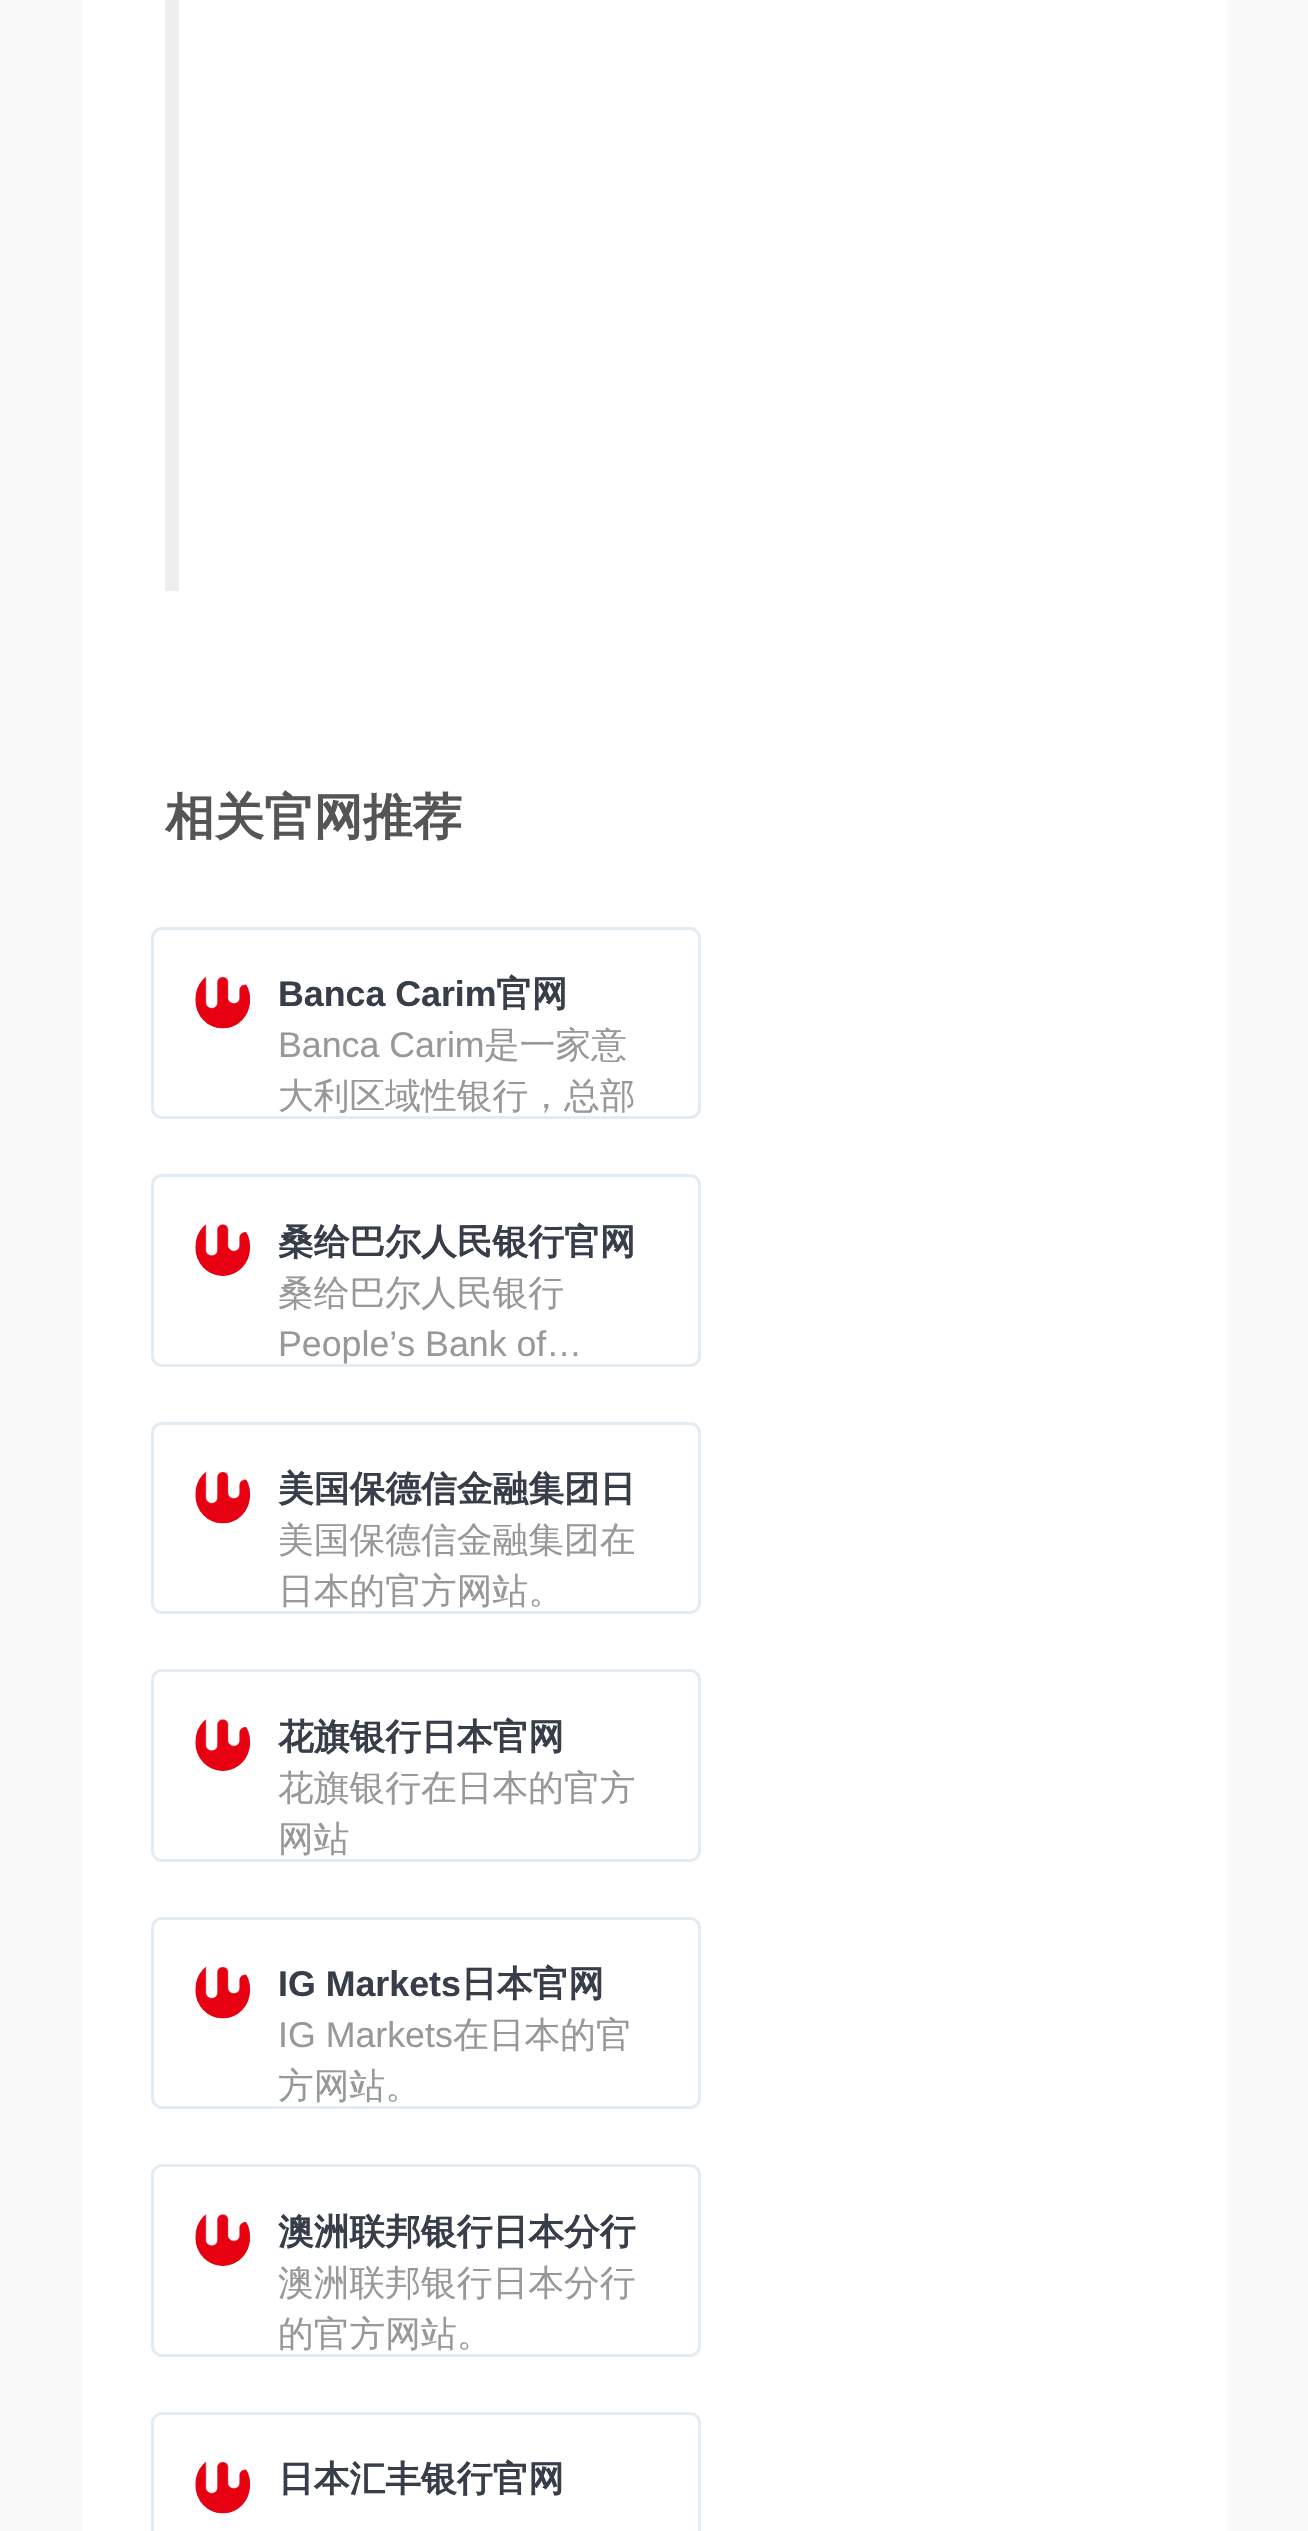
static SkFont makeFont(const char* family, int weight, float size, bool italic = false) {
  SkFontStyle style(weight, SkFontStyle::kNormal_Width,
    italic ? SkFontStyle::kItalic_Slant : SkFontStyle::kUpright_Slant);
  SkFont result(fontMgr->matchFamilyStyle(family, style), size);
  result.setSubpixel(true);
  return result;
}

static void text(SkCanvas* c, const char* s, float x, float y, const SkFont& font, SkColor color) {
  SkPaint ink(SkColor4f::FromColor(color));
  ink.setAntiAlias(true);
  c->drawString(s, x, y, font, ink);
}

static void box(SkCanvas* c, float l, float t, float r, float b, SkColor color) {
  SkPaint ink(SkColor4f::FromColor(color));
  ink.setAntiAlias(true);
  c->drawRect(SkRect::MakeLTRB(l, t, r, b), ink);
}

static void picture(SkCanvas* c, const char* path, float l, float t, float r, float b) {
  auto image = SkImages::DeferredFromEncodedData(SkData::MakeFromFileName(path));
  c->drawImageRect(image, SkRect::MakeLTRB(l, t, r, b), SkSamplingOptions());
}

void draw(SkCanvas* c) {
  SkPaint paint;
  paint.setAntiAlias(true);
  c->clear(0xfff9f9f9);
  box(c, 83, 0, 1227, 2531, 0xffffffff);
  box(c, 165, 0, 179, 591, 0xffeeeeee);
  SkFont face1 = makeFont("WenQuanYi Zen Hei", 700, 49.5f);
  text(c, "相关官网推荐", 165, 834, face1, 0xff555555);
  paint.setStyle(SkPaint::kStroke_Style);
  paint.setStrokeWidth(3);
  paint.setColor(0xffe4ecf3);
  c->drawRoundRect(SkRect::MakeLTRB(152.5f, 928.5f, 699.5f, 1117.5f), 9.5f, 9.5f, paint);
  picture(c, "img_01.png", 195, 976, 251, 1029);
  SkFont face2 = makeFont("Arimo", 700, 35.75f);
  text(c, "Banca Carim", 278, 1006, face2, 0xff373e4a);
  SkFont face3 = makeFont("WenQuanYi Zen Hei", 700, 35.75f);
  text(c, "官网", 496, 1006, face3, 0xff373e4a);
  SkFont face4 = makeFont("Arimo", 400, 35.75f);
  text(c, "Banca Carim", 278, 1057, face4, 0xff979898);
  SkFont face5 = makeFont("WenQuanYi Zen Hei", 500, 35.75f);
  text(c, "是一家意", 484, 1057, face5, 0xff979898);
  text(c, "大利区域性银行，总部", 278, 1108, face5, 0xff979898);
  c->drawRoundRect(SkRect::MakeLTRB(152.5f, 1175.5f, 699.5f, 1365.5f), 9.5f, 9.5f, paint);
  picture(c, "img_02.png", 195, 1224, 251, 1276);
  text(c, "桑给巴尔人民银行官网", 278, 1254, face3, 0xff373e4a);
  text(c, "桑给巴尔人民银行", 278, 1305, face5, 0xff979898);
  text(c, "People’s Bank of…", 278, 1356, face4, 0xff979898);
  c->drawRoundRect(SkRect::MakeLTRB(152.5f, 1423.5f, 699.5f, 1612.5f), 9.5f, 9.5f, paint);
  picture(c, "img_01.png", 195, 1471, 251, 1524);
  text(c, "美国保德信金融集团日", 278, 1501, face3, 0xff373e4a);
  text(c, "美国保德信金融集团在", 278, 1552, face5, 0xff979898);
  text(c, "日本的官方网站。", 278, 1603, face5, 0xff979898);
  c->drawRoundRect(SkRect::MakeLTRB(152.5f, 1670.5f, 699.5f, 1860.5f), 9.5f, 9.5f, paint);
  picture(c, "img_02.png", 195, 1719, 251, 1771);
  text(c, "花旗银行日本官网", 278, 1749, face3, 0xff373e4a);
  text(c, "花旗银行在日本的官方", 278, 1800, face5, 0xff979898);
  text(c, "网站", 278, 1851, face5, 0xff979898);
  c->drawRoundRect(SkRect::MakeLTRB(152.5f, 1918.5f, 699.5f, 2107.5f), 9.5f, 9.5f, paint);
  picture(c, "img_01.png", 195, 1966, 251, 2019);
  text(c, "IG Markets", 278, 1996, face2, 0xff373e4a);
  text(c, "日本官网", 461, 1996, face3, 0xff373e4a);
  text(c, "IG Markets", 278, 2047, face4, 0xff979898);
  text(c, "在日本的官", 453, 2047, face5, 0xff979898);
  text(c, "方网站。", 278, 2098, face5, 0xff979898);
  c->drawRoundRect(SkRect::MakeLTRB(152.5f, 2165.5f, 699.5f, 2355.5f), 9.5f, 9.5f, paint);
  picture(c, "img_02.png", 195, 2214, 251, 2266);
  text(c, "澳洲联邦银行日本分行", 278, 2244, face3, 0xff373e4a);
  text(c, "澳洲联邦银行日本分行", 278, 2295, face5, 0xff979898);
  text(c, "的官方网站。", 278, 2346, face5, 0xff979898);
  c->drawRoundRect(SkRect::MakeLTRB(152.5f, 2413.5f, 699.5f, 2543.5f), 9.5f, 9.5f, paint);
  picture(c, "img_01.png", 195, 2461, 251, 2514);
  text(c, "日本汇丰银行官网", 278, 2491, face3, 0xff373e4a);
}
